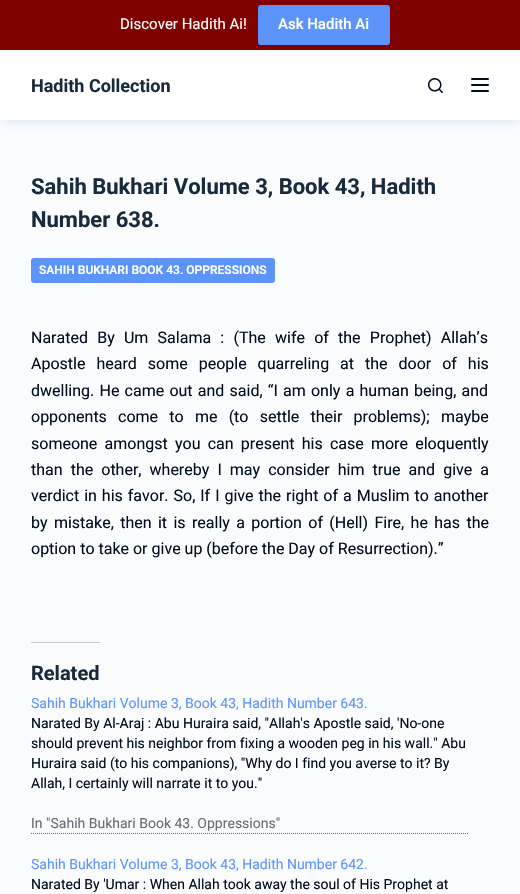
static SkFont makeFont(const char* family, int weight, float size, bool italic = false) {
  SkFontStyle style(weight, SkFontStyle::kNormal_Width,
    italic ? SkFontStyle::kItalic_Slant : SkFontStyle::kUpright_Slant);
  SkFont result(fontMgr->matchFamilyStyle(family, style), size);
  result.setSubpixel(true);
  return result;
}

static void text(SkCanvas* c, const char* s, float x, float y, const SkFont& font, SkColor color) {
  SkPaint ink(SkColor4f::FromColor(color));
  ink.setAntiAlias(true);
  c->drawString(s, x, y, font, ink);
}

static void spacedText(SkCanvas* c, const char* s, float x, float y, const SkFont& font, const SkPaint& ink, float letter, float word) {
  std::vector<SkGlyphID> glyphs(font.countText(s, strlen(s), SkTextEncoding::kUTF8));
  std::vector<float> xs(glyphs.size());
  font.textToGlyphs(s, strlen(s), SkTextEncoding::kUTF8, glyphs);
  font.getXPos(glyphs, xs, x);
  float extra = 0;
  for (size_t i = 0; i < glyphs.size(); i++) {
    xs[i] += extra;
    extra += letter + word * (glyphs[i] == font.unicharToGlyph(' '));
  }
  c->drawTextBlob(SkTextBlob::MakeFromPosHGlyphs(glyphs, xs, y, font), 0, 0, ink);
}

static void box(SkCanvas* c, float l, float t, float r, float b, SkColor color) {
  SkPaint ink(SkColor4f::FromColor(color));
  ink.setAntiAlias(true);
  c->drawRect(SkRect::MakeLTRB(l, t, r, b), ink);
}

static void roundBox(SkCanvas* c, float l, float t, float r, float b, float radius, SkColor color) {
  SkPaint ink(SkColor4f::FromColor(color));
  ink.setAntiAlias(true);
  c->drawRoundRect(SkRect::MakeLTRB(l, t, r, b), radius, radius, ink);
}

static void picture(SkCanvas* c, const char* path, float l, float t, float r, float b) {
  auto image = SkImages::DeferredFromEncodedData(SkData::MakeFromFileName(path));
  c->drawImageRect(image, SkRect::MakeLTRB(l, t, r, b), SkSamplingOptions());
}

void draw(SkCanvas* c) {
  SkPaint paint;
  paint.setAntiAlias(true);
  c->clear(0xfffafbfc);
  paint.setColor(0x2b4773ff);
  paint.setMaskFilter(SkMaskFilter::MakeBlur(kNormal_SkBlurStyle, 5));
  c->drawRect(SkRect::MakeLTRB(1, 51, 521, 121), paint);
  paint.setMaskFilter(nullptr);
  box(c, 0, 0, 520, 50, 0xff7f0200);
  SkFont face1 = makeFont("Roboto", 400, 15);
  text(c, "Discover Hadith Ai!", 120, 29, face1, 0xffffffff);
  roundBox(c, 258, 5, 390, 45, 3, 0xff5c94fc);
  SkFont face2 = makeFont("Roboto", 500, 15);
  text(c, "Ask Hadith Ai", 278, 29, face2, 0xffffffff);
  box(c, 0, 50, 520, 120, 0xffffffff);
  SkFont face3 = makeFont("Roboto", 700, 18);
  text(c, "Hadith Collection", 31, 92, face3, 0xff192a3d);
  picture(c, "img_01.png", 428, 78, 443, 93);
  roundBox(c, 471, 78, 489, 80, 1, 0xff000d1f);
  roundBox(c, 471, 84, 489, 86, 1, 0xff000d1f);
  roundBox(c, 471, 90, 489, 92, 1, 0xff000d1f);
  SkFont face4 = makeFont("Roboto", 700, 22);
  text(c, "Sahih Bukhari Volume 3, Book 43, Hadith", 31, 194, face4, 0xff192a3d);
  text(c, "Number 638.", 31, 227, face4, 0xff192a3d);
  roundBox(c, 31, 258, 275, 283, 3, 0xff5c94fc);
  SkFont face5 = makeFont("Roboto", 600, 12);
  text(c, "SAHIH BUKHARI BOOK 43. OPPRESSIONS", 39, 274, face5, 0xffffffff);
  SkFont face6 = makeFont("Roboto", 400, 16);
  paint.setColor(0xff000d1f);
  spacedText(c, "Narated By Um Salama : (The wife of the Prophet) Allah’s", 31, 343, face6, paint, 0, 5.25f);
  spacedText(c, "Apostle heard some people quarreling at the door of his", 31, 369, face6, paint, 0, 7);
  spacedText(c, "dwelling. He came out and said, “I am only a human being, and", 31, 396, face6, paint, 0, 1.25f);
  spacedText(c, "opponents come to me (to settle their problems); maybe", 31, 422, face6, paint, 0, 7.25f);
  spacedText(c, "someone amongst you can present his case more eloquently", 31, 449, face6, paint, 0, 3.25f);
  spacedText(c, "than the other, whereby I may consider him true and give a", 31, 475, face6, paint, 0, 4.1f);
  spacedText(c, "verdict in his favor. So, If I give the right of a Muslim to another", 31, 501, face6, paint, 0, 1);
  spacedText(c, "by mistake, then it is really a portion of (Hell) Fire, he has the", 31, 528, face6, paint, 0, 2.4f);
  text(c, "option to take or give up (before the Day of Resurrection).”", 31, 554, face6, 0xff000d1f);
  box(c, 31, 642, 100, 643, 0xffc8c9ca);
  SkFont face7 = makeFont("Roboto", 700, 20);
  text(c, "Related", 31, 680, face7, 0xff192a3d);
  SkFont face8 = makeFont("Roboto", 400, 14);
  text(c, "Sahih Bukhari Volume 3, Book 43, Hadith Number 643.", 31, 708, face8, 0xff5c94fc);
  text(c, "Narated By Al-Araj : Abu Huraira said, \"Allah's Apostle said, 'No-one", 31, 728, face8, 0xff000d1f);
  text(c, "should prevent his neighbor from fixing a wooden peg in his wall.\" Abu", 31, 748, face8, 0xff000d1f);
  text(c, "Huraira said (to his companions), \"Why do I find you averse to it? By", 31, 768, face8, 0xff000d1f);
  text(c, "Allah, I certainly will narrate it to you.\"", 31, 788, face8, 0xff000d1f);
  paint.setStyle(SkPaint::kStroke_Style);
  paint.setStrokeWidth(1);
  paint.setColor(0xff646c77);
  paint.setPathEffect(SkDashPathEffect::Make({{1, 1}}, 0));
  c->drawPath(SkPathBuilder().moveTo(31, 833.5f).lineTo(469, 833.5f).detach(), paint);
  paint.setPathEffect(nullptr);
  text(c, "In \"Sahih Bukhari Book 43. Oppressions\"", 31, 828, face8, 0xff646c77);
  text(c, "Sahih Bukhari Volume 3, Book 43, Hadith Number 642.", 31, 869, face8, 0xff5c94fc);
  text(c, "Narated By 'Umar : When Allah took away the soul of His Prophet at", 31, 889, face8, 0xff000d1f);
}
